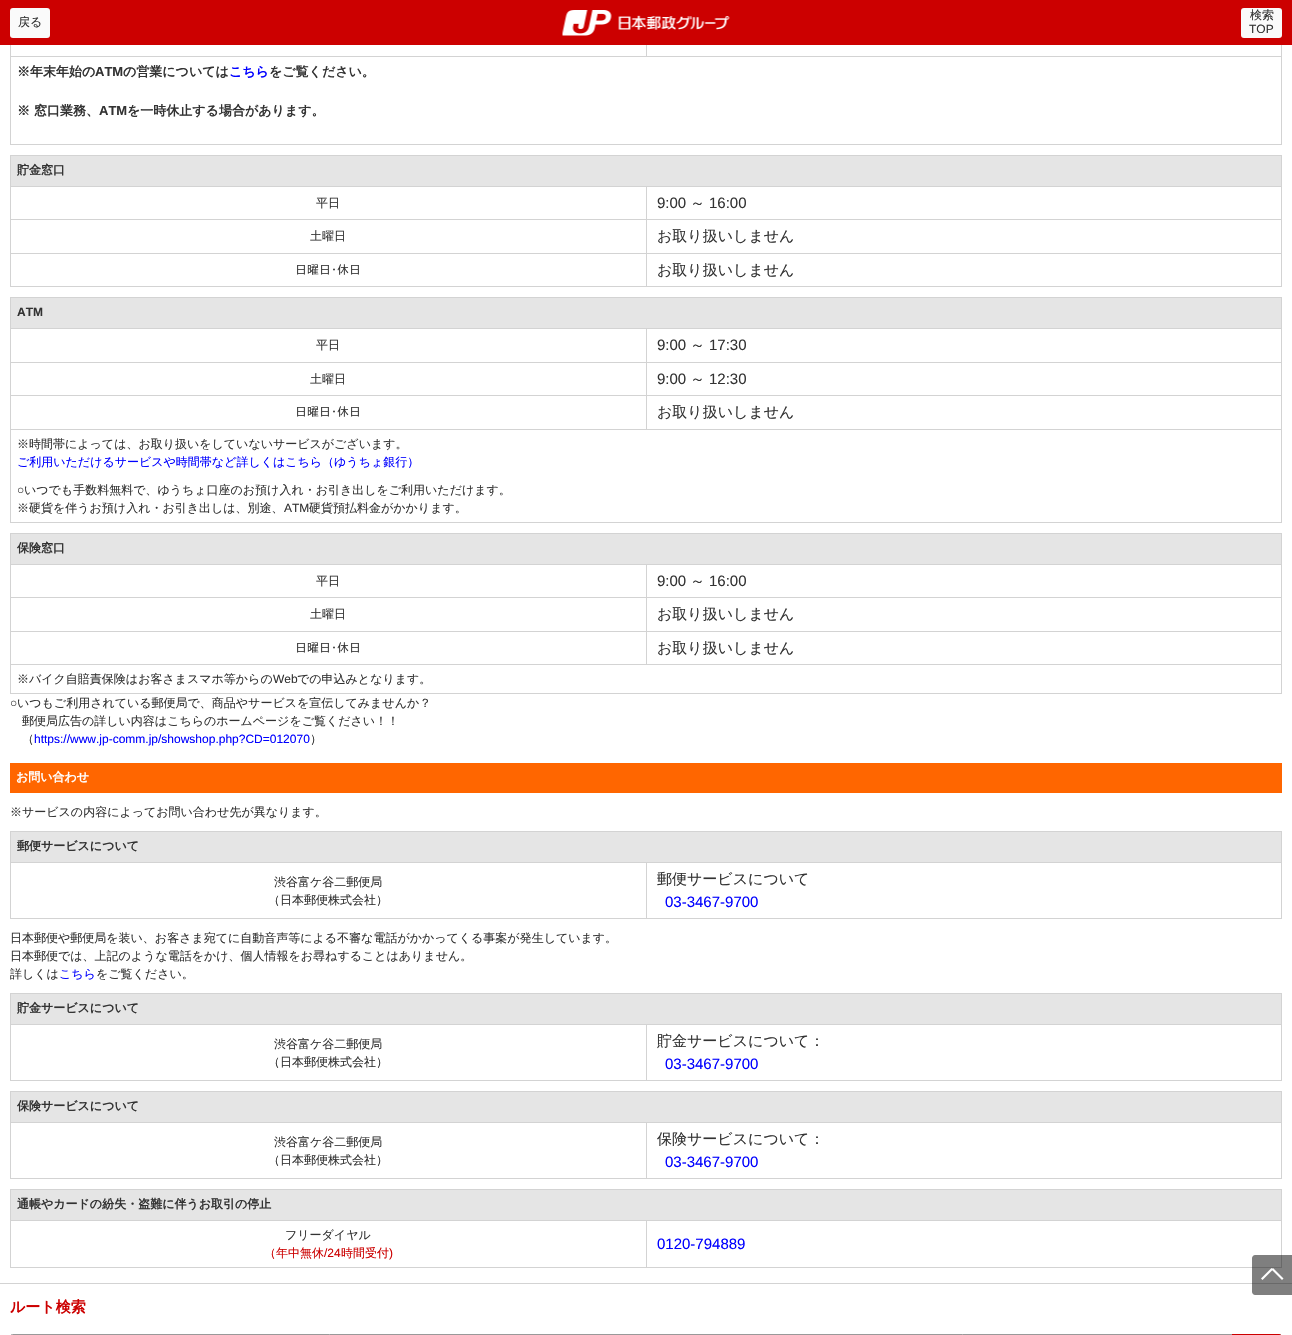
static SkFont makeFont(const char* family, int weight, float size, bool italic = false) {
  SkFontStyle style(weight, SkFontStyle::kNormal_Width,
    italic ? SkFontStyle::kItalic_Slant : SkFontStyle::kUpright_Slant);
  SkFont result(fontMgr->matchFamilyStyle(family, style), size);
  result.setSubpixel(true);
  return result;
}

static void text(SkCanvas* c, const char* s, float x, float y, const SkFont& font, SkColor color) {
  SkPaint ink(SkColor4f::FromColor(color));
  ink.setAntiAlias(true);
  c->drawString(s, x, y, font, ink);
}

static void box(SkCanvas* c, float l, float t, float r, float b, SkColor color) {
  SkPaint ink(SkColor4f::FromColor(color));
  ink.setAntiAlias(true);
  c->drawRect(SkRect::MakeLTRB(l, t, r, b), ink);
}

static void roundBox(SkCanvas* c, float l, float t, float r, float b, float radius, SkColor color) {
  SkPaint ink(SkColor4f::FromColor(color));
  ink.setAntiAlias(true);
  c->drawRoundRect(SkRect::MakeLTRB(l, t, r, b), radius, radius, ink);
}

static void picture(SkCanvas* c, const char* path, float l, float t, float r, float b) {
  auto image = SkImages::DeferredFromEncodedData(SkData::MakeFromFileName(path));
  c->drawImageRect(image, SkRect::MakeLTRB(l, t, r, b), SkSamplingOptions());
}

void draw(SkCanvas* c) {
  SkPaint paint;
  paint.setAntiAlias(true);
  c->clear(0xffffffff);
  box(c, 0, 0, 1292, 45, 0xffcc0000);
  roundBox(c, 10, 8, 50, 38, 3, 0xfffafafa);
  SkFont face1 = makeFont("WenQuanYi Zen Hei", 500, 12);
  text(c, "戻る", 18, 26, face1, 0xff333333);
  picture(c, "img_01.png", 562, 10, 730, 36);
  roundBox(c, 1241, 8, 1282, 38, 3, 0xfffafafa);
  text(c, "検索", 1250, 19, face1, 0xff333333);
  SkFont face2 = makeFont("Liberation Sans", 400, 12);
  text(c, "TOP", 1249, 33, face2, 0xff333333);
  box(c, 1281, 45, 1282, 145, 0xffd3d3d3);
  box(c, 646, 56, 1282, 57, 0xffd3d3d3);
  box(c, 646, 45, 647, 57, 0xffd3d3d3);
  box(c, 10, 56, 647, 57, 0xffd3d3d3);
  box(c, 10, 45, 11, 57, 0xffd3d3d3);
  box(c, 10, 144, 1282, 145, 0xffd3d3d3);
  box(c, 10, 57, 11, 145, 0xffd3d3d3);
  SkFont face3 = makeFont("WenQuanYi Zen Hei", 700, 13);
  text(c, "※年末年始の", 17, 76, face3, 0xff333333);
  SkFont face4 = makeFont("Liberation Sans", 700, 13);
  text(c, "ATM", 95, 76, face4, 0xff333333);
  text(c, "の営業については", 123, 76, face3, 0xff333333);
  text(c, "こちら", 229, 76, face3, 0xff0000ff);
  text(c, "をご覧ください。", 269, 76, face3, 0xff333333);
  text(c, "※ 窓口業務、", 17, 115, face3, 0xff333333);
  text(c, "ATM", 99, 115, face4, 0xff333333);
  text(c, "を一時休止する場合があります。", 127, 115, face3, 0xff333333);
  paint.setColor(0xffe5e5e5);
  c->drawRect(SkRect::MakeLTRB(10.5f, 155.5f, 1281.5f, 186.5f), paint);
  paint.setStyle(SkPaint::kStroke_Style);
  paint.setStrokeWidth(1);
  paint.setColor(0xffd3d3d3);
  c->drawRect(SkRect::MakeLTRB(10.5f, 155.5f, 1281.5f, 186.5f), paint);
  SkFont face5 = makeFont("WenQuanYi Zen Hei", 700, 12);
  text(c, "貯金窓口", 17, 174, face5, 0xff333333);
  box(c, 1281, 186, 1282, 287, 0xffd3d3d3);
  box(c, 646, 286, 1282, 287, 0xffd3d3d3);
  box(c, 646, 253, 647, 287, 0xffd3d3d3);
  box(c, 646, 253, 1282, 254, 0xffd3d3d3);
  box(c, 646, 219, 647, 254, 0xffd3d3d3);
  box(c, 646, 219, 1282, 220, 0xffd3d3d3);
  box(c, 646, 186, 647, 220, 0xffd3d3d3);
  box(c, 10, 286, 647, 287, 0xffd3d3d3);
  box(c, 10, 253, 11, 287, 0xffd3d3d3);
  box(c, 10, 253, 647, 254, 0xffd3d3d3);
  box(c, 10, 219, 11, 254, 0xffd3d3d3);
  box(c, 10, 219, 647, 220, 0xffd3d3d3);
  box(c, 10, 186, 11, 220, 0xffd3d3d3);
  text(c, "平日", 316, 207, face1, 0xff333333);
  SkFont face6 = makeFont("Liberation Sans", 400, 15);
  text(c, "9:00", 657, 208, face6, 0xff333333);
  SkFont face7 = makeFont("WenQuanYi Zen Hei", 500, 15);
  text(c, "～", 690, 208, face7, 0xff333333);
  text(c, "16:00", 709, 208, face6, 0xff333333);
  text(c, "土曜日", 310, 240, face1, 0xff333333);
  text(c, "お取り扱いしません", 657, 241, face7, 0xff333333);
  SkFont face8 = makeFont("IPAPGothic", 400, 12);
  text(c, "日曜日･休日", 295, 274, face8, 0xff333333);
  text(c, "お取り扱いしません", 657, 275, face7, 0xff333333);
  paint.setStyle(SkPaint::kFill_Style);
  paint.setColor(0xffe5e5e5);
  c->drawRect(SkRect::MakeLTRB(10.5f, 297.5f, 1281.5f, 328.5f), paint);
  paint.setStyle(SkPaint::kStroke_Style);
  paint.setColor(0xffd3d3d3);
  c->drawRect(SkRect::MakeLTRB(10.5f, 297.5f, 1281.5f, 328.5f), paint);
  SkFont face9 = makeFont("Liberation Sans", 700, 12);
  text(c, "ATM", 17, 316, face9, 0xff333333);
  box(c, 1281, 329, 1282, 523, 0xffd3d3d3);
  box(c, 646, 429, 1282, 430, 0xffd3d3d3);
  box(c, 646, 395, 647, 430, 0xffd3d3d3);
  box(c, 646, 395, 1282, 396, 0xffd3d3d3);
  box(c, 646, 362, 647, 396, 0xffd3d3d3);
  box(c, 646, 362, 1282, 363, 0xffd3d3d3);
  box(c, 646, 329, 647, 363, 0xffd3d3d3);
  box(c, 10, 429, 647, 430, 0xffd3d3d3);
  box(c, 10, 395, 11, 430, 0xffd3d3d3);
  box(c, 10, 395, 647, 396, 0xffd3d3d3);
  box(c, 10, 362, 11, 396, 0xffd3d3d3);
  box(c, 10, 362, 647, 363, 0xffd3d3d3);
  box(c, 10, 329, 11, 363, 0xffd3d3d3);
  text(c, "平日", 316, 349, face1, 0xff333333);
  text(c, "9:00", 657, 350, face6, 0xff333333);
  text(c, "～", 690, 350, face7, 0xff333333);
  text(c, "17:30", 709, 350, face6, 0xff333333);
  text(c, "土曜日", 310, 383, face1, 0xff333333);
  text(c, "9:00", 657, 384, face6, 0xff333333);
  text(c, "～", 690, 384, face7, 0xff333333);
  text(c, "12:30", 709, 384, face6, 0xff333333);
  text(c, "日曜日･休日", 295, 416, face8, 0xff333333);
  text(c, "お取り扱いしません", 657, 417, face7, 0xff333333);
  box(c, 10, 522, 1282, 523, 0xffd3d3d3);
  box(c, 10, 430, 11, 523, 0xffd3d3d3);
  text(c, "※時間帯によっては、お取り扱いをしていないサービスがございます。", 17, 448, face1, 0xff333333);
  text(c, "ご利用いただけるサービスや時間帯など詳しくはこちら（ゆうちょ銀行）", 17, 466, face1, 0xff0000ff);
  text(c, "○", 17, 494, face2, 0xff333333);
  text(c, "いつでも手数料無料で、ゆうちょ口座のお預け入れ・お引き出しをご利用いただけます。", 24, 494, face1, 0xff333333);
  text(c, "※硬貨を伴うお預け入れ・お引き出しは、別途、", 17, 512, face1, 0xff333333);
  text(c, "ATM", 284, 512, face2, 0xff333333);
  text(c, "硬貨預払料金がかかります。", 309, 512, face1, 0xff333333);
  paint.setStyle(SkPaint::kFill_Style);
  paint.setColor(0xffe5e5e5);
  c->drawRect(SkRect::MakeLTRB(10.5f, 533.5f, 1281.5f, 564.5f), paint);
  paint.setStyle(SkPaint::kStroke_Style);
  paint.setColor(0xffd3d3d3);
  c->drawRect(SkRect::MakeLTRB(10.5f, 533.5f, 1281.5f, 564.5f), paint);
  text(c, "保険窓口", 17, 552, face5, 0xff333333);
  box(c, 1281, 564, 1282, 694, 0xffd3d3d3);
  box(c, 646, 664, 1282, 665, 0xffd3d3d3);
  box(c, 646, 631, 647, 665, 0xffd3d3d3);
  box(c, 646, 631, 1282, 632, 0xffd3d3d3);
  box(c, 646, 597, 647, 632, 0xffd3d3d3);
  box(c, 646, 597, 1282, 598, 0xffd3d3d3);
  box(c, 646, 564, 647, 598, 0xffd3d3d3);
  box(c, 10, 664, 647, 665, 0xffd3d3d3);
  box(c, 10, 631, 11, 665, 0xffd3d3d3);
  box(c, 10, 631, 647, 632, 0xffd3d3d3);
  box(c, 10, 597, 11, 632, 0xffd3d3d3);
  box(c, 10, 597, 647, 598, 0xffd3d3d3);
  box(c, 10, 564, 11, 598, 0xffd3d3d3);
  text(c, "平日", 316, 585, face1, 0xff333333);
  text(c, "9:00", 657, 586, face6, 0xff333333);
  text(c, "～", 690, 586, face7, 0xff333333);
  text(c, "16:00", 709, 586, face6, 0xff333333);
  text(c, "土曜日", 310, 618, face1, 0xff333333);
  text(c, "お取り扱いしません", 657, 619, face7, 0xff333333);
  text(c, "日曜日･休日", 295, 652, face8, 0xff333333);
  text(c, "お取り扱いしません", 657, 653, face7, 0xff333333);
  box(c, 10, 693, 1282, 694, 0xffd3d3d3);
  box(c, 10, 665, 11, 694, 0xffd3d3d3);
  text(c, "※バイク自賠責保険はお客さまスマホ等からの", 17, 683, face1, 0xff333333);
  text(c, "Web", 273, 683, face2, 0xff333333);
  text(c, "での申込みとなります。", 297, 683, face1, 0xff333333);
  text(c, "○", 10, 707, face2, 0xff333333);
  text(c, "いつもご利用されている郵便局で、商品やサービスを宣伝してみませんか？", 17, 707, face1, 0xff333333);
  text(c, "郵便局広告の詳しい内容はこちらのホームページをご覧ください！！", 22, 725, face1, 0xff333333);
  text(c, "（", 22, 743, face1, 0xff333333);
  text(c, "https://www.jp-comm.jp/showshop.php?CD=012070", 34, 743, face2, 0xff0000ff);
  text(c, "）", 310, 743, face1, 0xff333333);
  box(c, 10, 763, 1282, 793, 0xffff6600);
  text(c, "お問い合わせ", 16, 781, face5, 0xffffffff);
  text(c, "※サービスの内容によってお問い合わせ先が異なります。", 10, 816, face1, 0xff333333);
  paint.setStyle(SkPaint::kFill_Style);
  paint.setColor(0xffe5e5e5);
  c->drawRect(SkRect::MakeLTRB(10.5f, 831.5f, 1281.5f, 862.5f), paint);
  paint.setStyle(SkPaint::kStroke_Style);
  paint.setColor(0xffd3d3d3);
  c->drawRect(SkRect::MakeLTRB(10.5f, 831.5f, 1281.5f, 862.5f), paint);
  text(c, "郵便サービスについて", 17, 850, face5, 0xff333333);
  box(c, 1281, 863, 1282, 919, 0xffd3d3d3);
  box(c, 646, 918, 1282, 919, 0xffd3d3d3);
  box(c, 646, 863, 647, 919, 0xffd3d3d3);
  box(c, 10, 918, 647, 919, 0xffd3d3d3);
  box(c, 10, 863, 11, 919, 0xffd3d3d3);
  text(c, "渋谷富ケ谷二郵便局", 274, 886, face1, 0xff333333);
  text(c, "（日本郵便株式会社）", 268, 904, face1, 0xff333333);
  text(c, "郵便サービスについて", 657, 884, face7, 0xff333333);
  text(c, "03-3467-9700", 665, 907, face6, 0xff0000ff);
  text(c, "日本郵便や郵便局を装い、お客さま宛てに自動音声等による不審な電話がかかってくる事案が発生しています。", 10, 942, face1, 0xff333333);
  text(c, "日本郵便では、上記のような電話をかけ、個人情報をお尋ねすることはありません。", 10, 960, face1, 0xff333333);
  text(c, "詳しくは", 10, 978, face1, 0xff333333);
  text(c, "こちら", 59, 978, face1, 0xff0000ff);
  text(c, "をご覧ください。", 96, 978, face1, 0xff333333);
  paint.setStyle(SkPaint::kFill_Style);
  paint.setColor(0xffe5e5e5);
  c->drawRect(SkRect::MakeLTRB(10.5f, 993.5f, 1281.5f, 1024.5f), paint);
  paint.setStyle(SkPaint::kStroke_Style);
  paint.setColor(0xffd3d3d3);
  c->drawRect(SkRect::MakeLTRB(10.5f, 993.5f, 1281.5f, 1024.5f), paint);
  text(c, "貯金サービスについて", 17, 1012, face5, 0xff333333);
  box(c, 1281, 1025, 1282, 1081, 0xffd3d3d3);
  box(c, 646, 1080, 1282, 1081, 0xffd3d3d3);
  box(c, 646, 1025, 647, 1081, 0xffd3d3d3);
  box(c, 10, 1080, 647, 1081, 0xffd3d3d3);
  box(c, 10, 1025, 11, 1081, 0xffd3d3d3);
  text(c, "渋谷富ケ谷二郵便局", 274, 1048, face1, 0xff333333);
  text(c, "（日本郵便株式会社）", 268, 1066, face1, 0xff333333);
  text(c, "貯金サービスについて：", 657, 1046, face7, 0xff333333);
  text(c, "03-3467-9700", 665, 1069, face6, 0xff0000ff);
  paint.setStyle(SkPaint::kFill_Style);
  paint.setColor(0xffe5e5e5);
  c->drawRect(SkRect::MakeLTRB(10.5f, 1091.5f, 1281.5f, 1122.5f), paint);
  paint.setStyle(SkPaint::kStroke_Style);
  paint.setColor(0xffd3d3d3);
  c->drawRect(SkRect::MakeLTRB(10.5f, 1091.5f, 1281.5f, 1122.5f), paint);
  text(c, "保険サービスについて", 17, 1110, face5, 0xff333333);
  box(c, 1281, 1123, 1282, 1179, 0xffd3d3d3);
  box(c, 646, 1178, 1282, 1179, 0xffd3d3d3);
  box(c, 646, 1123, 647, 1179, 0xffd3d3d3);
  box(c, 10, 1178, 647, 1179, 0xffd3d3d3);
  box(c, 10, 1123, 11, 1179, 0xffd3d3d3);
  text(c, "渋谷富ケ谷二郵便局", 274, 1146, face1, 0xff333333);
  text(c, "（日本郵便株式会社）", 268, 1164, face1, 0xff333333);
  text(c, "保険サービスについて：", 657, 1144, face7, 0xff333333);
  text(c, "03-3467-9700", 665, 1167, face6, 0xff0000ff);
  paint.setStyle(SkPaint::kFill_Style);
  paint.setColor(0xffe5e5e5);
  c->drawRect(SkRect::MakeLTRB(10.5f, 1189.5f, 1281.5f, 1220.5f), paint);
  paint.setStyle(SkPaint::kStroke_Style);
  paint.setColor(0xffd3d3d3);
  c->drawRect(SkRect::MakeLTRB(10.5f, 1189.5f, 1281.5f, 1220.5f), paint);
  text(c, "通帳やカードの紛失・盗難に伴うお取引の停止", 17, 1208, face5, 0xff333333);
  box(c, 1281, 1221, 1282, 1268, 0xffd3d3d3);
  box(c, 646, 1267, 1282, 1268, 0xffd3d3d3);
  box(c, 646, 1221, 647, 1268, 0xffd3d3d3);
  box(c, 10, 1267, 647, 1268, 0xffd3d3d3);
  box(c, 10, 1221, 11, 1268, 0xffd3d3d3);
  text(c, "フリーダイヤル", 285, 1239, face1, 0xff333333);
  text(c, "（年中無休", 264, 1257, face1, 0xffcc0000);
  text(c, "/24", 324, 1257, face2, 0xffcc0000);
  text(c, "時間受付", 341, 1257, face1, 0xffcc0000);
  text(c, ")", 389, 1257, face2, 0xffcc0000);
  text(c, "0120-794889", 657, 1249, face6, 0xff0000ff);
  box(c, 0, 1283, 1292, 1284, 0xffd3d3d3);
  SkFont face10 = makeFont("WenQuanYi Zen Hei", 700, 15);
  text(c, "ルート検索", 10, 1312, face10, 0xffcc0000);
  paint.setColor(0xff999999);
  c->drawRoundRect(SkRect::MakeLTRB(10.5f, 1334.5f, 1281.5f, 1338.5f), 2.5f, 2.5f, paint);
  paint.setStyle(SkPaint::kFill_Style);
  paint.setColor(0xffcc0000);
  c->drawPath(SkPathBuilder().moveTo(1232, 1334).lineTo(1279, 1334).cubicTo(1280.5f, 1334, 1282, 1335.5f, 1282, 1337).lineTo(1282, 1335).cubicTo(1282, 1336.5f, 1280.5f, 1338, 1279, 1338).lineTo(1232, 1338).close().detach(), paint);
  paint.setColor(0x80000000);
  c->drawPath(SkPathBuilder().moveTo(1255, 1255).lineTo(1292, 1255).lineTo(1292, 1295).lineTo(1255, 1295).cubicTo(1253.5f, 1295, 1252, 1293.5f, 1252, 1292).lineTo(1252, 1258).cubicTo(1252, 1256.5f, 1253.5f, 1255, 1255, 1255).close().detach(), paint);
  paint.setColor(0xffffffff);
  c->drawPath(SkPathBuilder().moveTo(1273, 1268).lineTo(1283.5f, 1278.5f).lineTo(1282, 1280).lineTo(1271.5f, 1269.5f).close().detach(), paint);
  c->drawPath(SkPathBuilder().moveTo(1261, 1278.5f).lineTo(1271.5f, 1268).lineTo(1273, 1269.5f).lineTo(1262.5f, 1280).close().detach(), paint);
}
